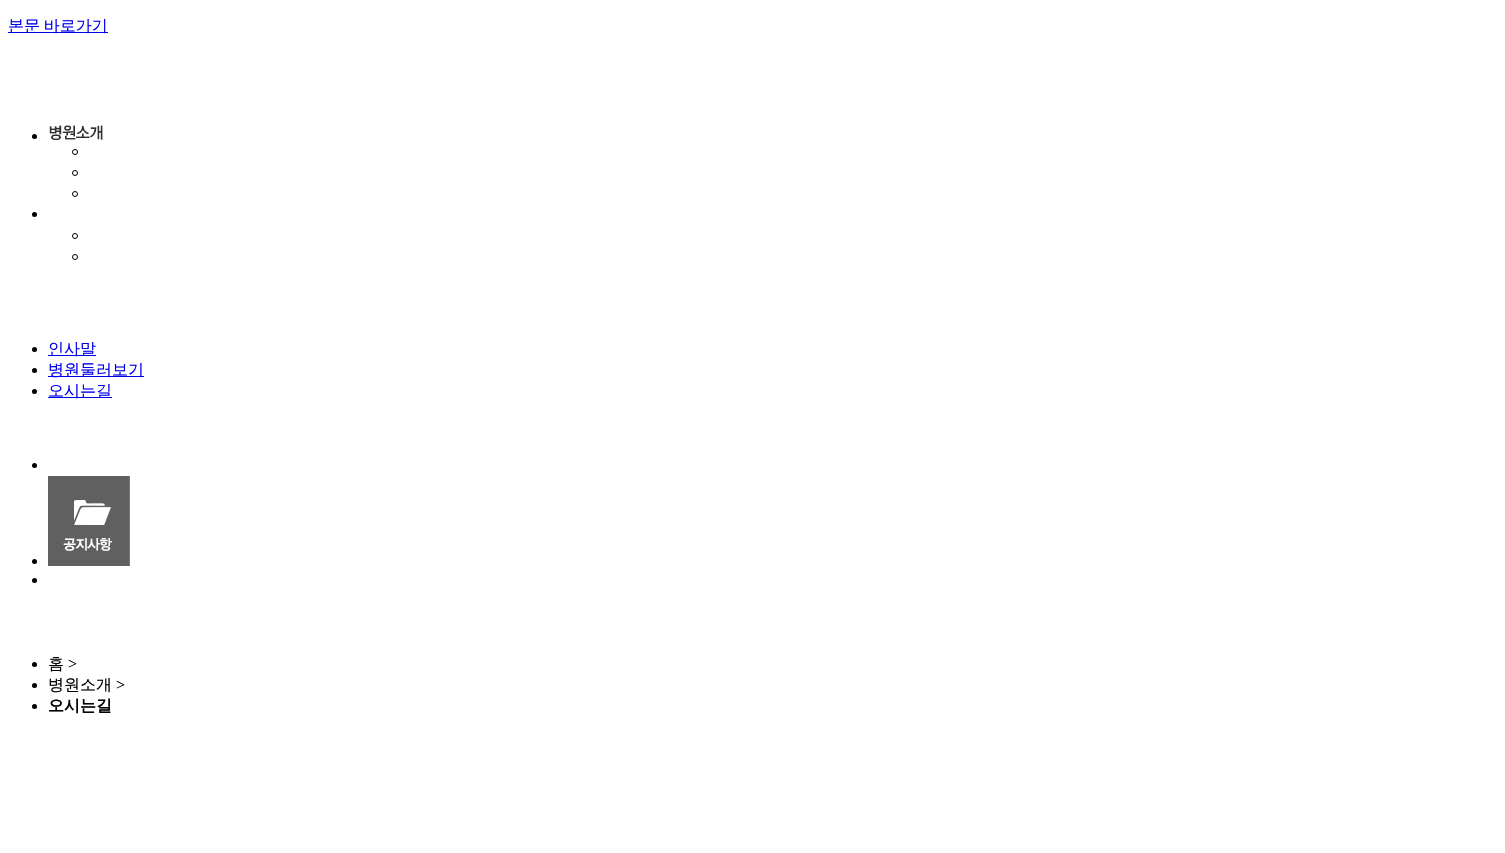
static SkFont makeFont(const char* family, int weight, float size, bool italic = false) {
  SkFontStyle style(weight, SkFontStyle::kNormal_Width,
    italic ? SkFontStyle::kItalic_Slant : SkFontStyle::kUpright_Slant);
  SkFont result(fontMgr->matchFamilyStyle(family, style), size);
  result.setSubpixel(true);
  return result;
}

static void text(SkCanvas* c, const char* s, float x, float y, const SkFont& font, SkColor color) {
  SkPaint ink(SkColor4f::FromColor(color));
  ink.setAntiAlias(true);
  c->drawString(s, x, y, font, ink);
}

static void spacedText(SkCanvas* c, const char* s, float x, float y, const SkFont& font, const SkPaint& ink, float letter, float word) {
  std::vector<SkGlyphID> glyphs(font.countText(s, strlen(s), SkTextEncoding::kUTF8));
  std::vector<float> xs(glyphs.size());
  font.textToGlyphs(s, strlen(s), SkTextEncoding::kUTF8, glyphs);
  font.getXPos(glyphs, xs, x);
  float extra = 0;
  for (size_t i = 0; i < glyphs.size(); i++) {
    xs[i] += extra;
    extra += letter + word * (glyphs[i] == font.unicharToGlyph(' '));
  }
  c->drawTextBlob(SkTextBlob::MakeFromPosHGlyphs(glyphs, xs, y, font), 0, 0, ink);
}

static void box(SkCanvas* c, float l, float t, float r, float b, SkColor color) {
  SkPaint ink(SkColor4f::FromColor(color));
  ink.setAntiAlias(true);
  c->drawRect(SkRect::MakeLTRB(l, t, r, b), ink);
}

static void picture(SkCanvas* c, const char* path, float l, float t, float r, float b) {
  auto image = SkImages::DeferredFromEncodedData(SkData::MakeFromFileName(path));
  c->drawImageRect(image, SkRect::MakeLTRB(l, t, r, b), SkSamplingOptions());
}

void draw(SkCanvas* c) {
  SkPaint paint;
  paint.setAntiAlias(true);
  c->clear(0xffffffff);
  box(c, 8, 32, 108, 33, 0xff0000ee);
  SkFont face1 = makeFont("WenQuanYi Zen Hei", 500, 16);
  paint.setColor(0xff0000ee);
  spacedText(c, "본문 바로가기", 8, 31, face1, paint, 0, -1);
  paint.setColor(0xff000000);
  c->drawCircle(34.5f, 136.5f, 2.5f, paint);
  picture(c, "img_01.png", 49, 125, 103, 140);
  paint.setStyle(SkPaint::kStroke_Style);
  paint.setStrokeWidth(1);
  c->drawCircle(75, 152, 2.5f, paint);
  c->drawCircle(75, 173, 2.5f, paint);
  c->drawCircle(75, 194, 2.5f, paint);
  paint.setStyle(SkPaint::kFill_Style);
  c->drawCircle(34.5f, 214.5f, 2.5f, paint);
  paint.setStyle(SkPaint::kStroke_Style);
  c->drawCircle(75, 236, 2.5f, paint);
  c->drawCircle(75, 257, 2.5f, paint);
  paint.setStyle(SkPaint::kFill_Style);
  c->drawCircle(34.5f, 349.5f, 2.5f, paint);
  box(c, 48, 355, 96, 356, 0xff0000ee);
  text(c, "인사말", 48, 354, face1, 0xff0000ee);
  c->drawCircle(34.5f, 370.5f, 2.5f, paint);
  box(c, 48, 376, 144, 377, 0xff0000ee);
  text(c, "병원둘러보기", 48, 375, face1, 0xff0000ee);
  c->drawCircle(34.5f, 391.5f, 2.5f, paint);
  box(c, 48, 397, 112, 398, 0xff0000ee);
  text(c, "오시는길", 48, 396, face1, 0xff0000ee);
  c->drawCircle(34.5f, 465.5f, 2.5f, paint);
  c->drawCircle(34.5f, 561.5f, 2.5f, paint);
  picture(c, "img_02.png", 48, 476, 130, 566);
  c->drawCircle(34.5f, 580.5f, 2.5f, paint);
  c->drawCircle(34.5f, 664.5f, 2.5f, paint);
  text(c, "홈", 48, 669, face1, 0xff000000);
  SkFont face2 = makeFont("Liberation Serif", 400, 16);
  text(c, ">", 68, 669, face2, 0xff000000);
  c->drawCircle(34.5f, 685.5f, 2.5f, paint);
  text(c, "병원소개", 48, 690, face1, 0xff000000);
  text(c, ">", 116, 690, face2, 0xff000000);
  c->drawCircle(34.5f, 706.5f, 2.5f, paint);
  SkFont face3 = makeFont("WenQuanYi Zen Hei", 700, 16);
  text(c, "오시는길", 48, 711, face3, 0xff000000);
}
